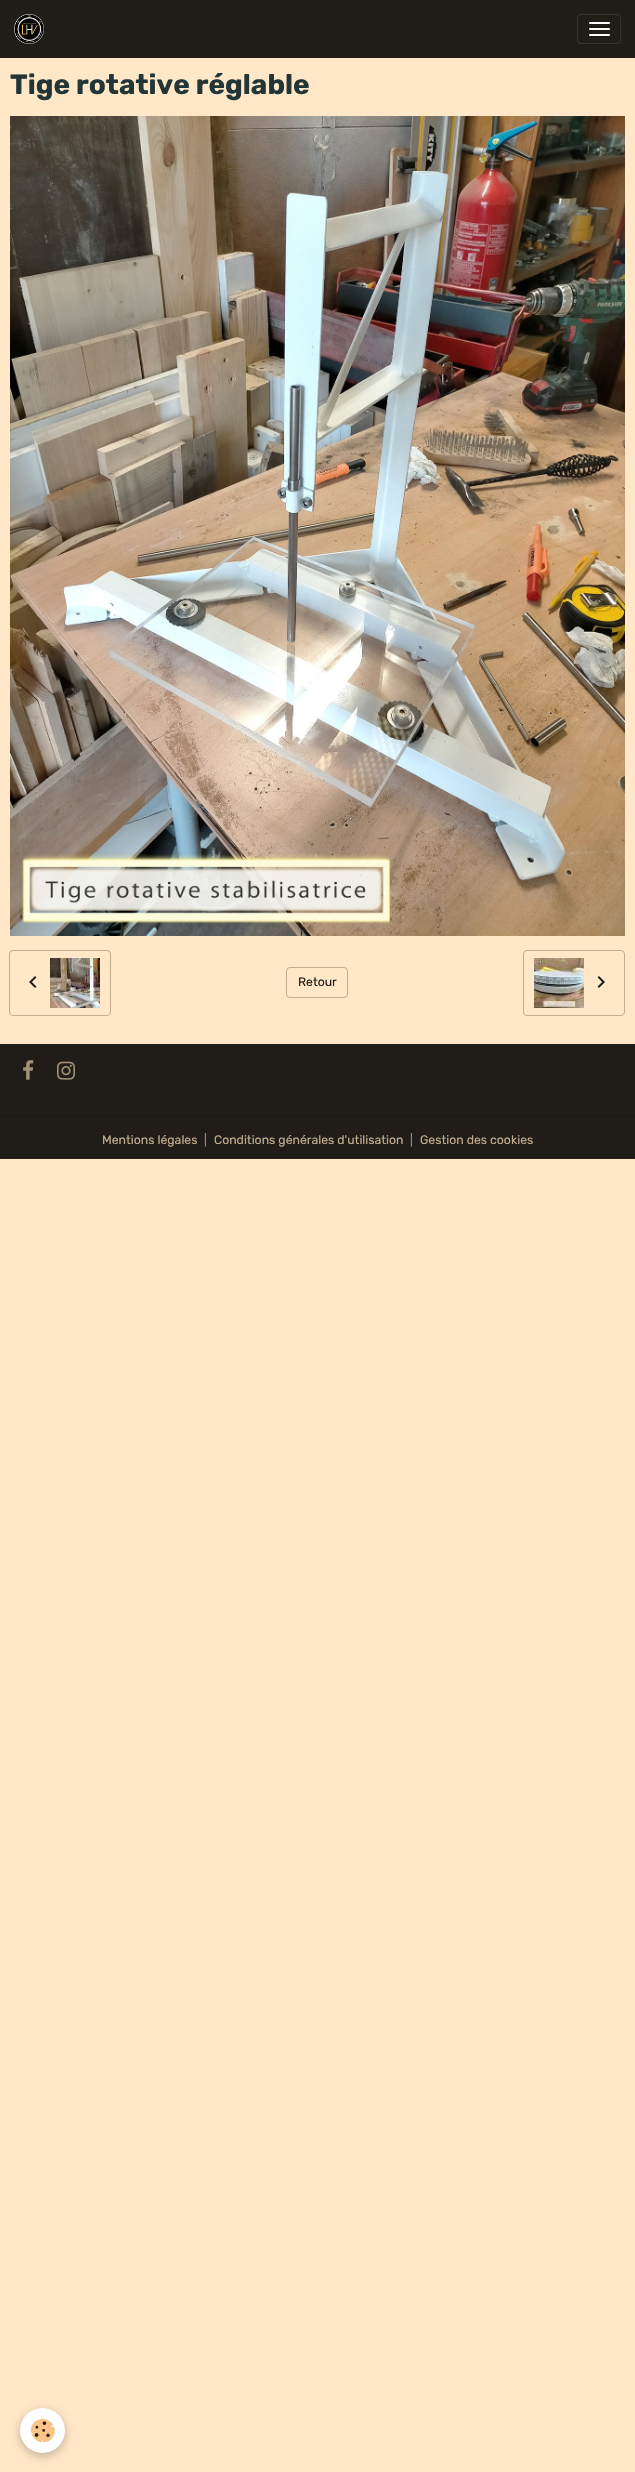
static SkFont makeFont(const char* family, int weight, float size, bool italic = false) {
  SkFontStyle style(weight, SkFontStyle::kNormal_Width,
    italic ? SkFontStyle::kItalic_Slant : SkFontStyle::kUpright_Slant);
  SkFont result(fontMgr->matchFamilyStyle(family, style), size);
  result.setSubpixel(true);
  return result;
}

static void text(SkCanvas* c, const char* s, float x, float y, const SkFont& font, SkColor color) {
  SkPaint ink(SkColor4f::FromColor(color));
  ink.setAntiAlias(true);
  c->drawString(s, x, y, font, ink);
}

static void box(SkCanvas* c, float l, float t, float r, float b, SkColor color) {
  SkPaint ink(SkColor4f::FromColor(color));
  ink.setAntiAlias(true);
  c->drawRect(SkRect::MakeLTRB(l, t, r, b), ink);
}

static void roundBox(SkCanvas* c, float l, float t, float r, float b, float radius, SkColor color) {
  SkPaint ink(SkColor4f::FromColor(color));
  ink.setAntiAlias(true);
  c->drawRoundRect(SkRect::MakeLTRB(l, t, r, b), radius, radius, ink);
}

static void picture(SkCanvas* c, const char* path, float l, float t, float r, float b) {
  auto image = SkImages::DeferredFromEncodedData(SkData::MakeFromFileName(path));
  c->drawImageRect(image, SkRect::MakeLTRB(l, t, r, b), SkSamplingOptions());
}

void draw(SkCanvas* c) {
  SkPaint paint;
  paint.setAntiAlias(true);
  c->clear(0xffffe7c7);
  box(c, 0, 0, 635, 58, 0xff201d19);
  picture(c, "img_01.png", 14, 14, 44, 44);
  paint.setStyle(SkPaint::kStroke_Style);
  paint.setStrokeWidth(1);
  paint.setColor(0xff363430);
  c->drawRoundRect(SkRect::MakeLTRB(577.5f, 14.5f, 620.5f, 43.5f), 3.5f, 3.5f, paint);
  roundBox(c, 589, 22, 610, 24, 1, 0xffffffff);
  roundBox(c, 589, 28, 610, 30, 1, 0xffffffff);
  roundBox(c, 589, 34, 610, 36, 1, 0xffffffff);
  SkFont face1 = makeFont("Rubik", 700, 28);
  text(c, "Tige rotative réglable", 10, 94, face1, 0xff233637);
  picture(c, "img_02.png", 10, 116, 625, 936);
  paint.setColor(0xffc3ac8d);
  c->drawRoundRect(SkRect::MakeLTRB(9.5f, 950.5f, 110.5f, 1015.5f), 3.5f, 3.5f, paint);
  picture(c, "img_03.png", 29, 976, 37, 988);
  picture(c, "img_04.png", 50, 958, 100, 1008);
  c->drawRoundRect(SkRect::MakeLTRB(286.5f, 967.5f, 347.5f, 997.5f), 3.5f, 3.5f, paint);
  SkFont face2 = makeFont("Rubik", 400, 12.25f);
  text(c, "Retour", 298, 986, face2, 0xff201d19);
  c->drawRoundRect(SkRect::MakeLTRB(523.5f, 950.5f, 624.5f, 1015.5f), 3.5f, 3.5f, paint);
  picture(c, "img_05.png", 534, 958, 584, 1008);
  picture(c, "img_06.png", 597, 976, 605, 988);
  box(c, 0, 1044, 635, 1159, 0xff201d19);
  picture(c, "img_07.png", 23, 1060, 34, 1080);
  picture(c, "img_08.png", 57, 1061, 75, 1080);
  box(c, 0, 1116, 635, 1117, 0xff1a1714);
  text(c, "Mentions légales", 102, 1144, face2, 0xffc3ac8d);
  text(c, "|", 204, 1144, face2, 0xffa28f76);
  text(c, "Conditions générales d'utilisation", 214, 1144, face2, 0xffc3ac8d);
  text(c, "|", 410, 1144, face2, 0xffa28f76);
  text(c, "Gestion des cookies", 420, 1144, face2, 0xffc3ac8d);
  paint.setStyle(SkPaint::kFill_Style);
  paint.setColor(0x3d000000);
  paint.setMaskFilter(SkMaskFilter::MakeBlur(kNormal_SkBlurStyle, 5));
  c->drawRoundRect(SkRect::MakeLTRB(20, 2411, 65, 2456), 22.5f, 22.5f, paint);
  paint.setMaskFilter(nullptr);
  paint.setColor(0xffffffff);
  c->drawCircle(42.5f, 2430.5f, 22.5f, paint);
  picture(c, "img_09.png", 30, 2418, 55, 2443);
}
